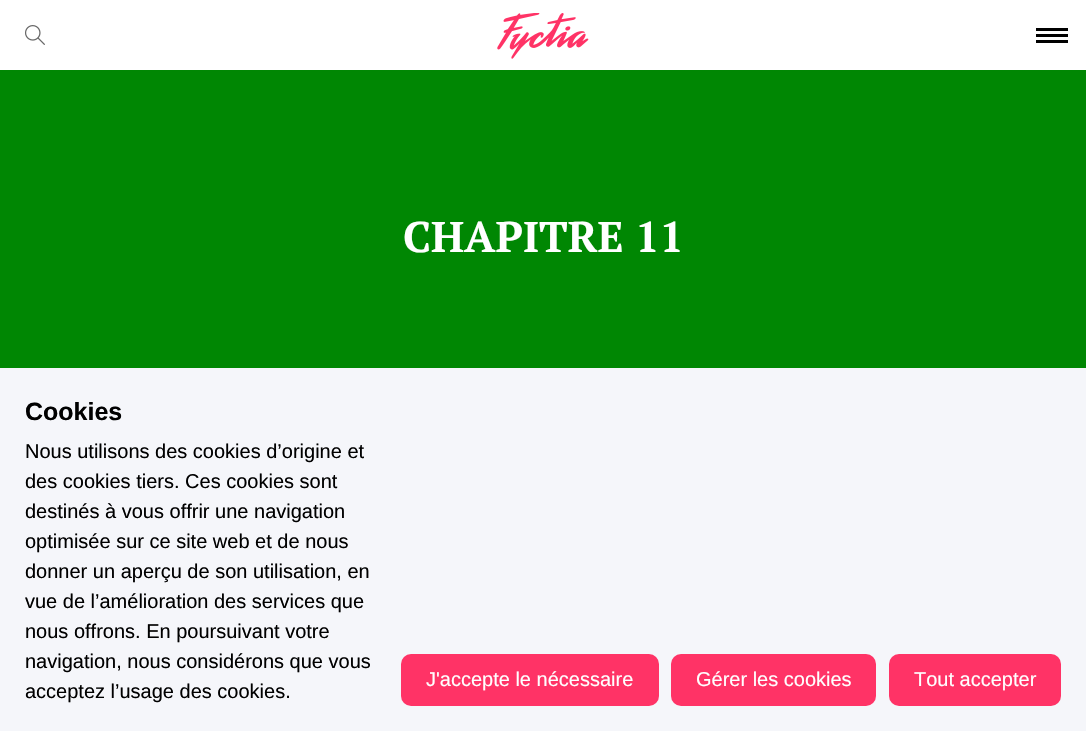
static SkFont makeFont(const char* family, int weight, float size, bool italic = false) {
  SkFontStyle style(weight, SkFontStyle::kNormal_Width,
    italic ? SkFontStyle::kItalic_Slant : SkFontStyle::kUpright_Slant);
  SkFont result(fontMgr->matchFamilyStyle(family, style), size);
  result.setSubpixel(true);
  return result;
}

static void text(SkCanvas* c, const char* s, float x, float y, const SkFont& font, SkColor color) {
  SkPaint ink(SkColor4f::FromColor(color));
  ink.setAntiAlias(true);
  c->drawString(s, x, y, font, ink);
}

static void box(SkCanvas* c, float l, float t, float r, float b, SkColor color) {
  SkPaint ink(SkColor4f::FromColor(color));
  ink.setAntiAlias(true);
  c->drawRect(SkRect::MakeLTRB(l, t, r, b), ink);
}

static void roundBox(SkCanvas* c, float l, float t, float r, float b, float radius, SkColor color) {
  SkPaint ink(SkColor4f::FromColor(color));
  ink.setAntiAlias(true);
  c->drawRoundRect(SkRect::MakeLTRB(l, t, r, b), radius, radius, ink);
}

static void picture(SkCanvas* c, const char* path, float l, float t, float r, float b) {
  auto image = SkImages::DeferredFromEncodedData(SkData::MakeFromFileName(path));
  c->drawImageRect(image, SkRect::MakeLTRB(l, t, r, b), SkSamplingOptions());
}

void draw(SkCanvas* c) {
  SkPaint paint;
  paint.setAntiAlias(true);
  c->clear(0xffffffff);
  picture(c, "img_01.png", 25, 25, 45, 45);
  picture(c, "img_02.png", 497, 13, 589, 59);
  box(c, 1036, 34, 1068, 37, 0xff000000);
  box(c, 1036, 28, 1068, 31, 0xff000000);
  box(c, 1036, 40, 1068, 43, 0xff000000);
  box(c, 0, 70, 1086, 368, 0xff008703);
  SkFont face1 = makeFont("PT Serif", 700, 43);
  text(c, "CHAPITRE 11", 403, 252, face1, 0xffffffff);
  box(c, 0, 368, 1086, 731, 0xfff5f6fa);
  SkFont face2 = makeFont("Liberation Sans", 700, 25);
  text(c, "Cookies", 25, 420, face2, 0xff000000);
  SkFont face3 = makeFont("Liberation Sans", 400, 20);
  text(c, "Nous utilisons des cookies d’origine et", 25, 458, face3, 0xff000000);
  text(c, "des cookies tiers. Ces cookies sont", 25, 488, face3, 0xff000000);
  text(c, "destinés à vous offrir une navigation", 25, 518, face3, 0xff000000);
  text(c, "optimisée sur ce site web et de nous", 25, 548, face3, 0xff000000);
  text(c, "donner un aperçu de son utilisation, en", 25, 578, face3, 0xff000000);
  text(c, "vue de l’amélioration des services que", 25, 608, face3, 0xff000000);
  text(c, "nous offrons. En poursuivant votre", 25, 638, face3, 0xff000000);
  text(c, "navigation, nous considérons que vous", 25, 668, face3, 0xff000000);
  text(c, "acceptez l’usage des cookies.", 25, 698, face3, 0xff000000);
  roundBox(c, 401, 654, 659, 706, 10, 0xffff3366);
  text(c, "J'accepte le nécessaire", 426, 686, face3, 0xffffffff);
  roundBox(c, 671, 654, 876, 706, 10, 0xffff3366);
  text(c, "Gérer les cookies", 696, 686, face3, 0xffffffff);
  roundBox(c, 889, 654, 1061, 706, 10, 0xffff3366);
  text(c, "Tout accepter", 914, 686, face3, 0xffffffff);
}
